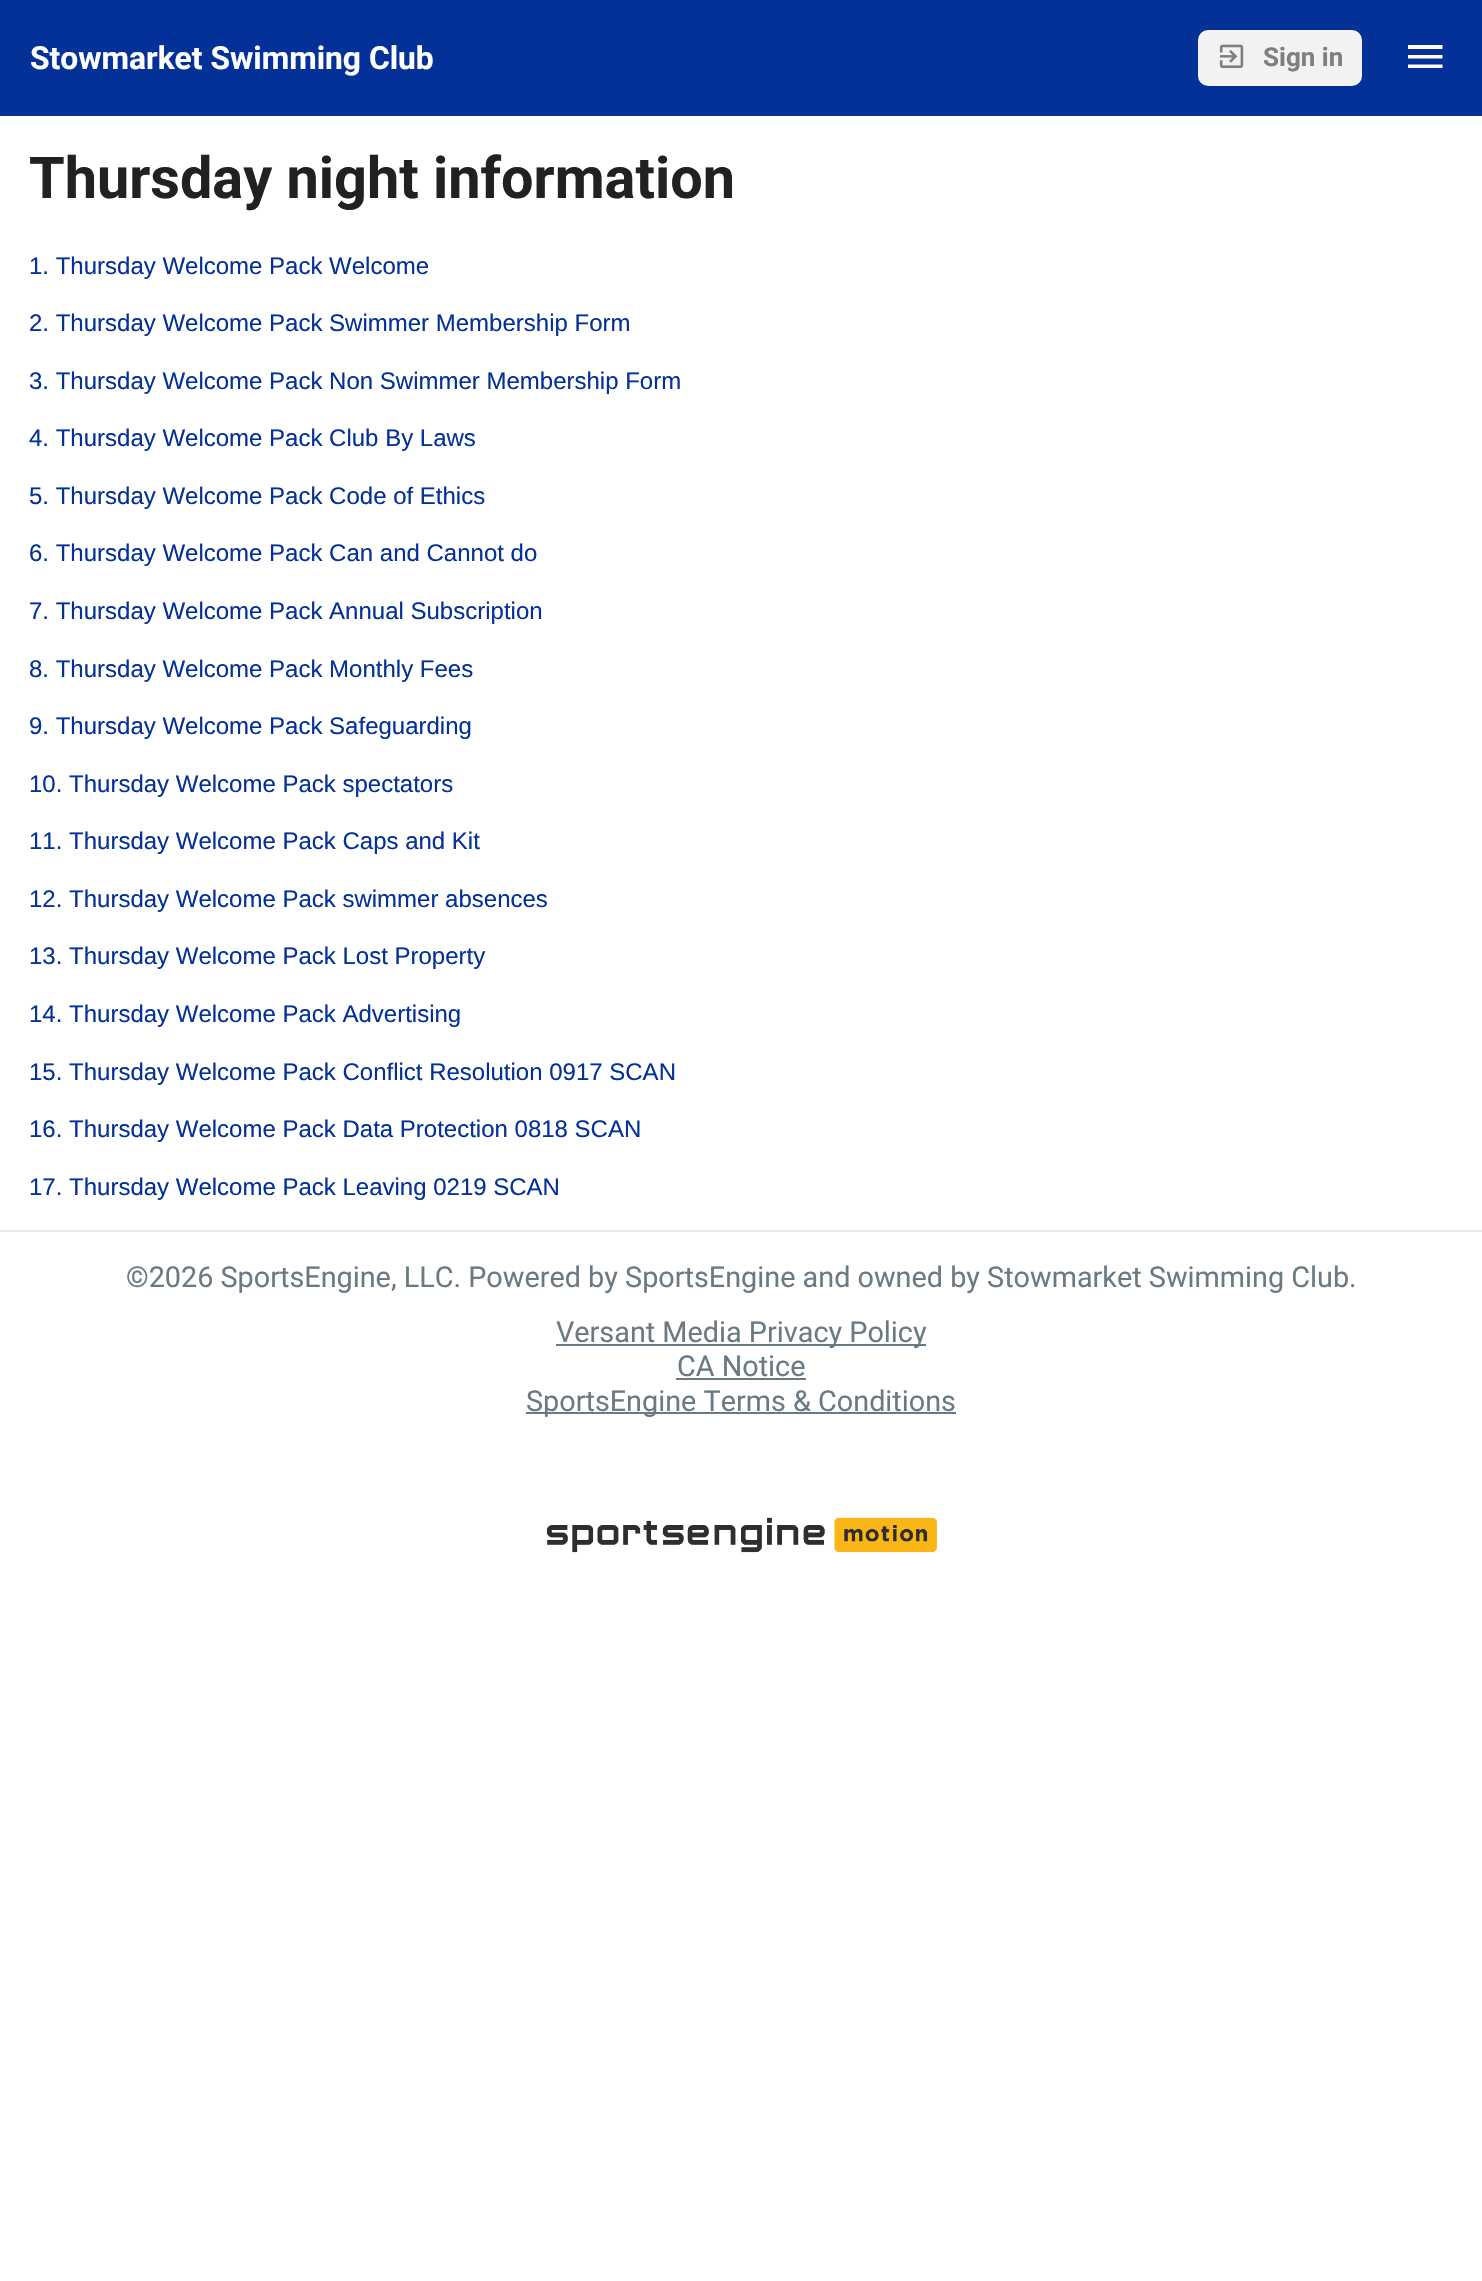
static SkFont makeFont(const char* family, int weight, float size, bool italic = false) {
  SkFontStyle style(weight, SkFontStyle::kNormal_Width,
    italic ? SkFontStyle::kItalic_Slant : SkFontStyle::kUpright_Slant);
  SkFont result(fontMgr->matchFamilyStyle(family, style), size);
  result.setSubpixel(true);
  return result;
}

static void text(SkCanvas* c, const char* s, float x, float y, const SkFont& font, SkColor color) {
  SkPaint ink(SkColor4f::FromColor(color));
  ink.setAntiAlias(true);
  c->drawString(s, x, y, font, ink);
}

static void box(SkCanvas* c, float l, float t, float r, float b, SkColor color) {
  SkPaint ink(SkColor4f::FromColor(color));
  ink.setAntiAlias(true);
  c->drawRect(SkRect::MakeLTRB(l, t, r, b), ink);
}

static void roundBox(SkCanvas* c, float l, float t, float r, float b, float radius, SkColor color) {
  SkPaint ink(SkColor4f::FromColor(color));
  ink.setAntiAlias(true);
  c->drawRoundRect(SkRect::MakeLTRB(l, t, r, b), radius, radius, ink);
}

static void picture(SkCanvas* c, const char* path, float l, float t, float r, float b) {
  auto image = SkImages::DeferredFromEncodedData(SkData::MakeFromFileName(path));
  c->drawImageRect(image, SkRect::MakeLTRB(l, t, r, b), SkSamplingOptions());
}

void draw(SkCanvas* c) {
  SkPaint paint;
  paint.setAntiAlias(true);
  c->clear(0xffffffff);
  box(c, 0, 0, 1482, 116, 0xff043197);
  SkFont face1 = makeFont("Roboto", 700, 31.75f);
  text(c, "Stowmarket Swimming Club", 30, 69, face1, 0xffffffff);
  roundBox(c, 1198, 30, 1362, 86, 10, 0xfff2f2f2);
  picture(c, "img_01.png", 1219, 44, 1244, 68);
  SkFont face2 = makeFont("Roboto", 700, 26);
  text(c, "Sign in", 1263, 66, face2, 0xff7f7f7f);
  paint.setColor(0xffffffff);
  c->drawPath(SkPathBuilder().moveTo(1408, 45).lineTo(1442.5f, 45).lineTo(1442.5f, 49).lineTo(1408, 49).close().moveTo(1408, 55).lineTo(1442.5f, 55).lineTo(1442.5f, 58.5f).lineTo(1408, 58.5f).close().moveTo(1408, 64.5f).lineTo(1442.5f, 64.5f).lineTo(1442.5f, 68).lineTo(1408, 68).close().detach(), paint);
  SkFont face3 = makeFont("Roboto", 700, 57.6f);
  text(c, "Thursday night information", 29, 198, face3, 0xff212121);
  SkFont face4 = makeFont("Liberation Sans", 400, 24);
  text(c, "1. Thursday Welcome Pack Welcome", 29, 274, face4, 0xff043197);
  text(c, "2. Thursday Welcome Pack Swimmer Membership Form", 29, 331, face4, 0xff043197);
  text(c, "3. Thursday Welcome Pack Non Swimmer Membership Form", 29, 389, face4, 0xff043197);
  text(c, "4. Thursday Welcome Pack Club By Laws", 29, 446, face4, 0xff043197);
  text(c, "5. Thursday Welcome Pack Code of Ethics", 29, 504, face4, 0xff043197);
  text(c, "6. Thursday Welcome Pack Can and Cannot do", 29, 561, face4, 0xff043197);
  text(c, "7. Thursday Welcome Pack Annual Subscription", 29, 619, face4, 0xff043197);
  text(c, "8. Thursday Welcome Pack Monthly Fees", 29, 677, face4, 0xff043197);
  text(c, "9. Thursday Welcome Pack Safeguarding", 29, 734, face4, 0xff043197);
  text(c, "10. Thursday Welcome Pack spectators", 29, 792, face4, 0xff043197);
  text(c, "11. Thursday Welcome Pack Caps and Kit", 29, 849, face4, 0xff043197);
  text(c, "12. Thursday Welcome Pack swimmer absences", 29, 907, face4, 0xff043197);
  text(c, "13. Thursday Welcome Pack Lost Property", 29, 964, face4, 0xff043197);
  text(c, "14. Thursday Welcome Pack Advertising", 29, 1022, face4, 0xff043197);
  text(c, "15. Thursday Welcome Pack Conflict Resolution 0917 SCAN", 29, 1080, face4, 0xff043197);
  text(c, "16. Thursday Welcome Pack Data Protection 0818 SCAN", 29, 1137, face4, 0xff043197);
  text(c, "17. Thursday Welcome Pack Leaving 0219 SCAN", 29, 1195, face4, 0xff043197);
  box(c, 0, 1230, 1482, 1232, 0xffe7e7e7);
  SkFont face5 = makeFont("Roboto", 400, 28.8f);
  text(c, "©2026 SportsEngine, LLC. Powered by SportsEngine and owned by Stowmarket Swimming Club.", 126, 1287, face5, 0xff6b7982);
  box(c, 556, 1344, 926, 1346, 0xff6b7982);
  text(c, "Versant Media Privacy Policy", 556, 1342, face5, 0xff6b7982);
  text(c, "CA Notice", 677, 1376, face5, 0xff6b7982);
  box(c, 676, 1378, 806, 1380, 0xff6b7982);
  box(c, 526, 1412, 956, 1414, 0xff6b7982);
  text(c, "SportsEngine Terms & Conditions", 526, 1411, face5, 0xff6b7982);
  picture(c, "img_02.png", 547, 1517, 937, 1553);
}
